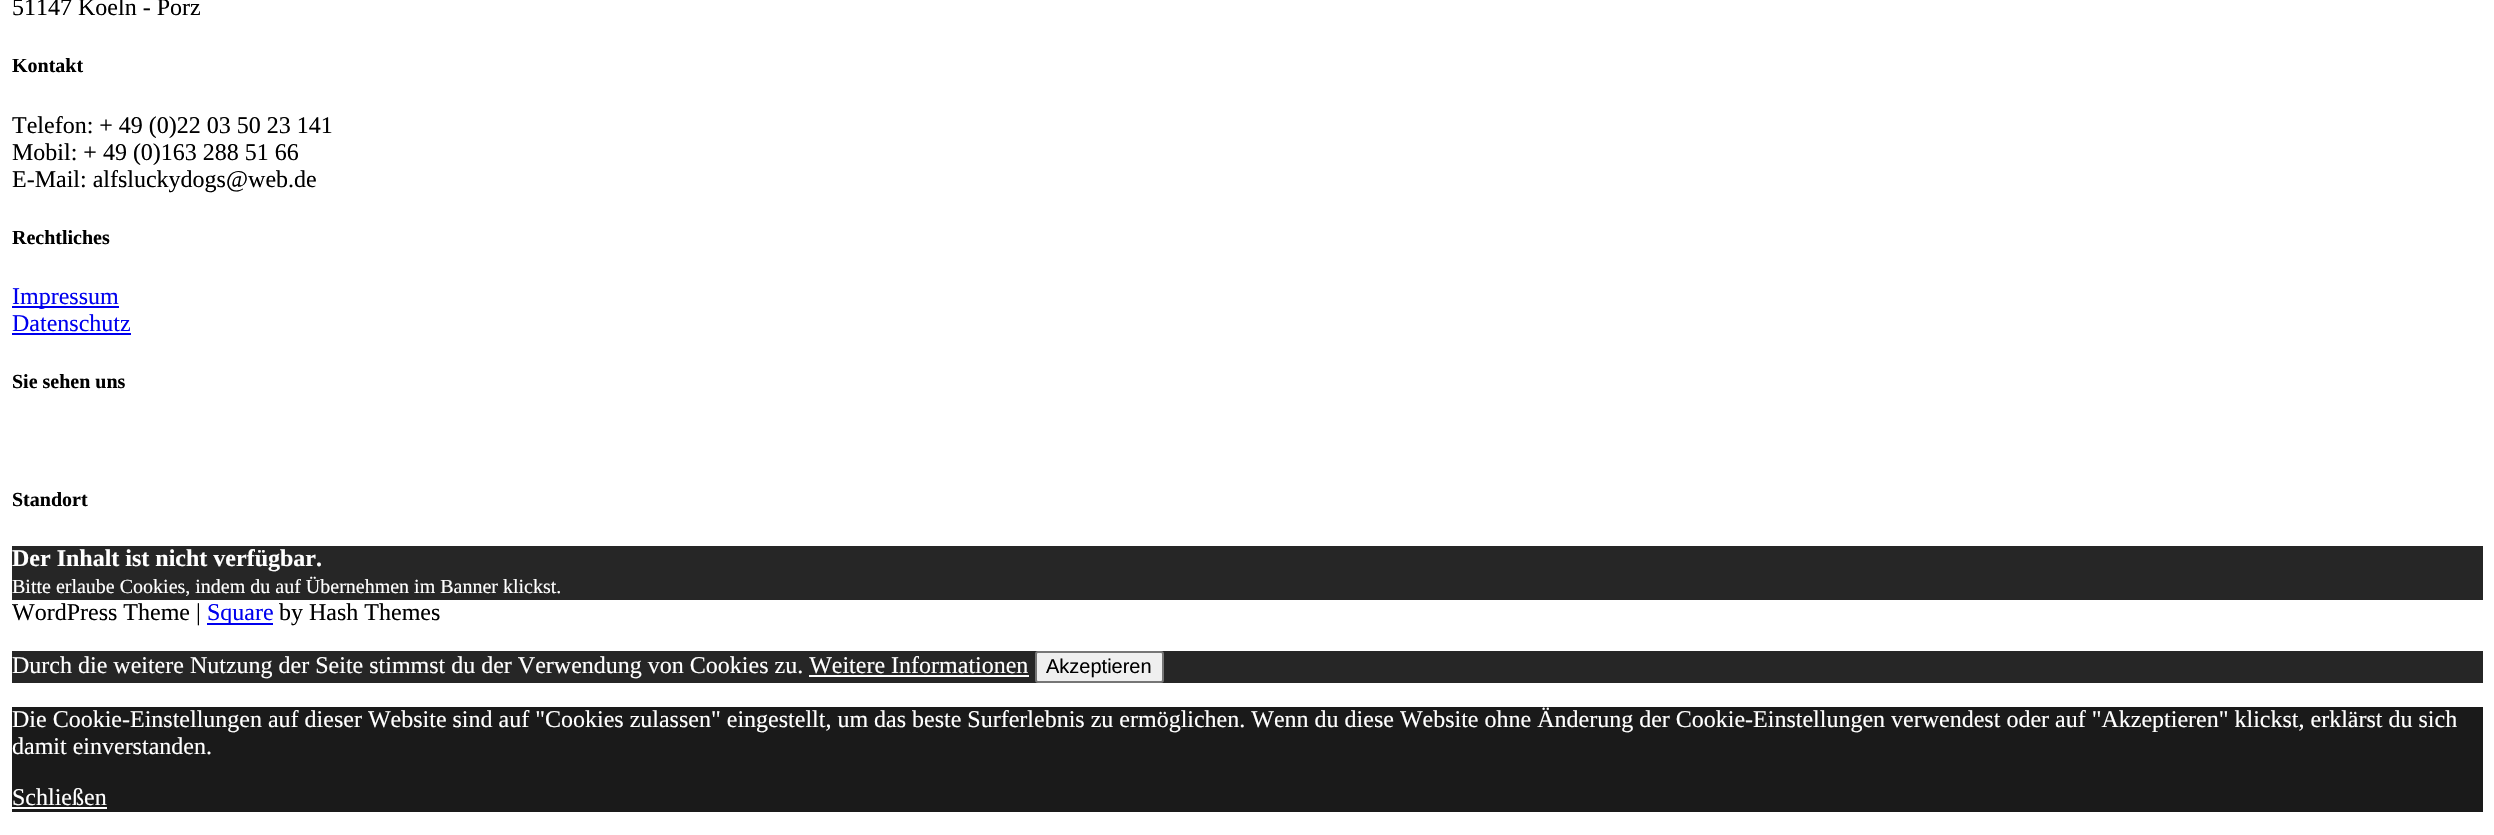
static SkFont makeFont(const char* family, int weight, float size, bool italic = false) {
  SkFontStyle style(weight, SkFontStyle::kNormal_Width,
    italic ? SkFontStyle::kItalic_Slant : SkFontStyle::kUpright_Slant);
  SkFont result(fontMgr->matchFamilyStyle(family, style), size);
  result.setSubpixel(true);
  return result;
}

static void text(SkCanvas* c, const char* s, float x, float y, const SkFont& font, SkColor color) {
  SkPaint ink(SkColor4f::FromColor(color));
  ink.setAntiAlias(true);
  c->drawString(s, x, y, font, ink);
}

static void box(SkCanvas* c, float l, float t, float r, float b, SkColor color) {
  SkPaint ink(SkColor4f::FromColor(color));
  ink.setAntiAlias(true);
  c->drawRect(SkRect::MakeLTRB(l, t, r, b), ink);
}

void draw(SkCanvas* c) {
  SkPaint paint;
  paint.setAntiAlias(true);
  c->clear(0xffffffff);
  SkFont face1 = makeFont("Liberation Serif", 400, 24);
  text(c, "51147 Koeln - Porz", 12, 15, face1, 0xff000000);
  SkFont face2 = makeFont("Liberation Serif", 700, 20);
  text(c, "Kontakt", 12, 72, face2, 0xff000000);
  text(c, "Telefon: + 49 (0)22 03 50 23 141", 12, 133, face1, 0xff000000);
  text(c, "Mobil: + 49 (0)163 288 51 66", 12, 160, face1, 0xff000000);
  text(c, "E-Mail: alfsluckydogs@web.de", 12, 187, face1, 0xff000000);
  text(c, "Rechtliches", 12, 244, face2, 0xff000000);
  box(c, 12, 306, 119, 308, 0xff0000ee);
  text(c, "Impressum", 12, 304, face1, 0xff0000ee);
  text(c, "Datenschutz", 12, 331, face1, 0xff0000ee);
  box(c, 12, 333, 131, 335, 0xff0000ee);
  text(c, "Sie sehen uns", 12, 388, face2, 0xff000000);
  text(c, "Standort", 12, 506, face2, 0xff000000);
  box(c, 12, 546, 2483, 600, 0xff262626);
  SkFont face3 = makeFont("Liberation Serif", 700, 24);
  text(c, "Der Inhalt ist nicht verfügbar.", 12, 566, face3, 0xffffffff);
  SkFont face4 = makeFont("Liberation Serif", 400, 20);
  text(c, "Bitte erlaube Cookies, indem du auf Übernehmen im Banner klickst.", 12, 593, face4, 0xffffffff);
  text(c, "WordPress Theme |", 12, 620, face1, 0xff000000);
  box(c, 207, 623, 273, 625, 0xff0000ee);
  text(c, "Square", 207, 620, face1, 0xff0000ee);
  text(c, "by Hash Themes", 279, 620, face1, 0xff000000);
  box(c, 12, 651, 2483, 683, 0xff262626);
  text(c, "Durch die weitere Nutzung der Seite stimmst du der Verwendung von Cookies zu. Weitere Informationen", 12, 673, face1, 0xffffffff);
  paint.setColor(0xffefefef);
  c->drawRoundRect(SkRect::MakeLTRB(1036, 652, 1163, 682), 2, 2, paint);
  paint.setStyle(SkPaint::kStroke_Style);
  paint.setStrokeWidth(2);
  paint.setColor(0xff767676);
  c->drawRoundRect(SkRect::MakeLTRB(1036, 652, 1163, 682), 2, 2, paint);
  SkFont face5 = makeFont("Liberation Sans", 400, 20);
  text(c, "Akzeptieren", 1046, 673, face5, 0xff000000);
  box(c, 809, 675, 1029, 677, 0xffffffff);
  box(c, 12, 707, 2483, 812, 0xff1a1a1a);
  text(c, "Die Cookie-Einstellungen auf dieser Website sind auf \"Cookies zulassen\" eingestellt, um das beste Surferlebnis zu ermöglichen. Wenn du diese Website ohne Änderung der Cookie-Einstellungen verwendest oder auf \"Akzeptieren\" klickst, erklärst du sich", 12, 727, face1, 0xffffffff);
  text(c, "damit einverstanden.", 12, 754, face1, 0xffffffff);
  text(c, "Schließen", 12, 805, face1, 0xffffffff);
  box(c, 12, 807, 107, 809, 0xffffffff);
}
